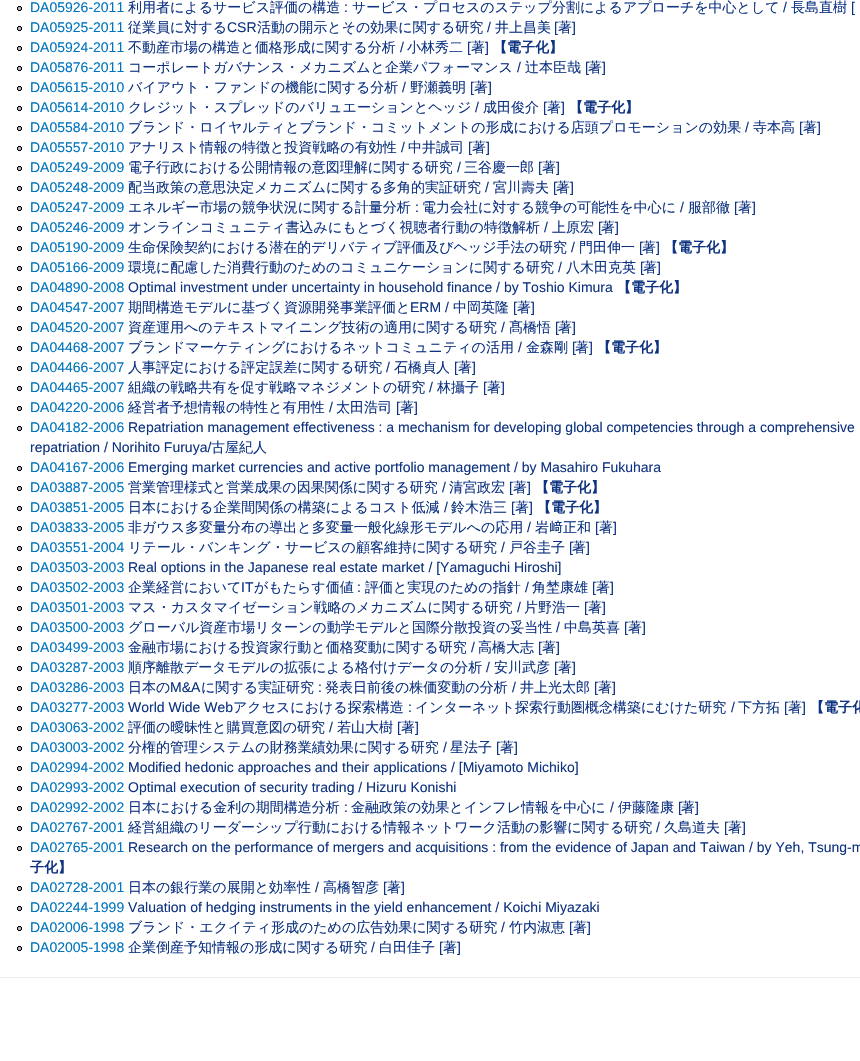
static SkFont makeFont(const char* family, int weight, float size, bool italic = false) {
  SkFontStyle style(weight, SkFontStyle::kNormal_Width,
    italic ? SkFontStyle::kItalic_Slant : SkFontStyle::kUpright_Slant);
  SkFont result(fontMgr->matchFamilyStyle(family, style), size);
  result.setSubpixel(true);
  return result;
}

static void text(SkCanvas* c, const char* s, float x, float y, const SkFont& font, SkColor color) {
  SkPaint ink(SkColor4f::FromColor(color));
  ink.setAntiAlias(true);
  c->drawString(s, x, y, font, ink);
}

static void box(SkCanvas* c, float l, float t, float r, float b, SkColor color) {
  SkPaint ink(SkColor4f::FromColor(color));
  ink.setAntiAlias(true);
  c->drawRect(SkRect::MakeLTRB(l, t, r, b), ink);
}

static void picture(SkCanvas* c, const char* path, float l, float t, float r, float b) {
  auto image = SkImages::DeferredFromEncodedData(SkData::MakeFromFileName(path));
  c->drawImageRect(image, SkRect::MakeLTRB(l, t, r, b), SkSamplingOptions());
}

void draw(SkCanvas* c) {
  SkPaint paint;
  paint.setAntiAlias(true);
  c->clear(0xffffffff);
  box(c, 0, 977, 860, 978, 0xffe9eff3);
  picture(c, "img_01.png", 17, 6, 22, 11);
  SkFont face1 = makeFont("Liberation Sans", 400, 14);
  text(c, "DA05926-2011", 30, 12, face1, 0xff0074bd);
  SkFont face2 = makeFont("WenQuanYi Zen Hei", 500, 14);
  text(c, "利用者によるサービス評価の構造", 128, 12, face2, 0xff0e3381);
  text(c, ":", 344, 12, face1, 0xff0e3381);
  text(c, "サービス・プロセスのステップ分割によるアプローチを中心として", 352, 12, face2, 0xff0e3381);
  text(c, "/", 783, 12, face1, 0xff0e3381);
  text(c, "長島直樹", 791, 12, face2, 0xff0e3381);
  text(c, "[", 851, 12, face1, 0xff0e3381);
  picture(c, "img_01.png", 17, 26, 22, 31);
  text(c, "DA05925-2011", 30, 32, face1, 0xff0074bd);
  text(c, "従業員に対する", 128, 32, face2, 0xff0e3381);
  text(c, "CSR", 227, 32, face1, 0xff0e3381);
  text(c, "活動の開示とその効果に関する研究", 257, 32, face2, 0xff0e3381);
  text(c, "/", 487, 32, face1, 0xff0e3381);
  text(c, "井上昌美", 495, 32, face2, 0xff0e3381);
  text(c, "[", 554, 32, face1, 0xff0e3381);
  text(c, "著", 558, 32, face2, 0xff0e3381);
  text(c, "]", 572, 32, face1, 0xff0e3381);
  picture(c, "img_01.png", 17, 46, 22, 51);
  text(c, "DA05924-2011", 30, 52, face1, 0xff0074bd);
  text(c, "不動産市場の構造と価格形成に関する分析", 128, 52, face2, 0xff0e3381);
  text(c, "/", 400, 52, face1, 0xff0e3381);
  text(c, "小林秀二", 407, 52, face2, 0xff0e3381);
  text(c, "[", 467, 52, face1, 0xff0e3381);
  text(c, "著", 471, 52, face2, 0xff0e3381);
  text(c, "]", 485, 52, face1, 0xff0e3381);
  SkFont face3 = makeFont("WenQuanYi Zen Hei", 700, 14);
  text(c, "【電子化】", 493, 52, face3, 0xff0e3381);
  picture(c, "img_01.png", 17, 66, 22, 71);
  text(c, "DA05876-2011", 30, 72, face1, 0xff0074bd);
  text(c, "コーポレートガバナンス・メカニズムと企業パフォーマンス", 128, 72, face2, 0xff0e3381);
  text(c, "/", 517, 72, face1, 0xff0e3381);
  text(c, "辻本臣哉", 525, 72, face2, 0xff0e3381);
  text(c, "[", 585, 72, face1, 0xff0e3381);
  text(c, "著", 588, 72, face2, 0xff0e3381);
  text(c, "]", 602, 72, face1, 0xff0e3381);
  picture(c, "img_01.png", 17, 86, 22, 91);
  text(c, "DA05615-2010", 30, 92, face1, 0xff0074bd);
  text(c, "バイアウト・ファンドの機能に関する分析", 128, 92, face2, 0xff0e3381);
  text(c, "/", 402, 92, face1, 0xff0e3381);
  text(c, "野瀬義明", 410, 92, face2, 0xff0e3381);
  text(c, "[", 470, 92, face1, 0xff0e3381);
  text(c, "著", 474, 92, face2, 0xff0e3381);
  text(c, "]", 488, 92, face1, 0xff0e3381);
  picture(c, "img_01.png", 17, 106, 22, 111);
  text(c, "DA05614-2010", 30, 112, face1, 0xff0074bd);
  text(c, "クレジット・スプレッドのバリュエーションとヘッジ", 128, 112, face2, 0xff0e3381);
  text(c, "/", 475, 112, face1, 0xff0e3381);
  text(c, "成田俊介", 483, 112, face2, 0xff0e3381);
  text(c, "[", 543, 112, face1, 0xff0e3381);
  text(c, "著", 547, 112, face2, 0xff0e3381);
  text(c, "]", 561, 112, face1, 0xff0e3381);
  text(c, "【電子化】", 569, 112, face3, 0xff0e3381);
  picture(c, "img_01.png", 17, 126, 22, 131);
  text(c, "DA05584-2010", 30, 132, face1, 0xff0074bd);
  text(c, "ブランド・ロイヤルティとブランド・コミットメントの形成における店頭プロモーションの効果", 128, 132, face2, 0xff0e3381);
  text(c, "/", 745, 132, face1, 0xff0e3381);
  text(c, "寺本高", 753, 132, face2, 0xff0e3381);
  text(c, "[", 799, 132, face1, 0xff0e3381);
  text(c, "著", 803, 132, face2, 0xff0e3381);
  text(c, "]", 817, 132, face1, 0xff0e3381);
  picture(c, "img_01.png", 17, 146, 22, 151);
  text(c, "DA05557-2010", 30, 152, face1, 0xff0074bd);
  text(c, "アナリスト情報の特徴と投資戦略の有効性", 128, 152, face2, 0xff0e3381);
  text(c, "/", 401, 152, face1, 0xff0e3381);
  text(c, "中井誠司", 408, 152, face2, 0xff0e3381);
  text(c, "[", 468, 152, face1, 0xff0e3381);
  text(c, "著", 472, 152, face2, 0xff0e3381);
  text(c, "]", 486, 152, face1, 0xff0e3381);
  picture(c, "img_01.png", 17, 166, 22, 171);
  text(c, "DA05249-2009", 30, 172, face1, 0xff0074bd);
  text(c, "電子行政における公開情報の意図理解に関する研究", 128, 172, face2, 0xff0e3381);
  text(c, "/", 457, 172, face1, 0xff0e3381);
  text(c, "三谷慶一郎", 464, 172, face2, 0xff0e3381);
  text(c, "[", 538, 172, face1, 0xff0e3381);
  text(c, "著", 542, 172, face2, 0xff0e3381);
  text(c, "]", 556, 172, face1, 0xff0e3381);
  picture(c, "img_01.png", 17, 186, 22, 191);
  text(c, "DA05248-2009", 30, 192, face1, 0xff0074bd);
  text(c, "配当政策の意思決定メカニズムに関する多角的実証研究", 128, 192, face2, 0xff0e3381);
  text(c, "/", 485, 192, face1, 0xff0e3381);
  text(c, "宮川壽夫", 493, 192, face2, 0xff0e3381);
  text(c, "[", 553, 192, face1, 0xff0e3381);
  text(c, "著", 556, 192, face2, 0xff0e3381);
  text(c, "]", 570, 192, face1, 0xff0e3381);
  picture(c, "img_01.png", 17, 206, 22, 211);
  text(c, "DA05247-2009", 30, 212, face1, 0xff0074bd);
  text(c, "エネルギー市場の競争状況に関する計量分析", 128, 212, face2, 0xff0e3381);
  text(c, ":", 415, 212, face1, 0xff0e3381);
  text(c, "電力会社に対する競争の可能性を中心に", 422, 212, face2, 0xff0e3381);
  text(c, "/", 680, 212, face1, 0xff0e3381);
  text(c, "服部徹", 688, 212, face2, 0xff0e3381);
  text(c, "[", 734, 212, face1, 0xff0e3381);
  text(c, "著", 738, 212, face2, 0xff0e3381);
  text(c, "]", 752, 212, face1, 0xff0e3381);
  picture(c, "img_01.png", 17, 226, 22, 231);
  text(c, "DA05246-2009", 30, 232, face1, 0xff0074bd);
  text(c, "オンラインコミュニティ書込みにもとづく視聴者行動の特徴解析", 128, 232, face2, 0xff0e3381);
  text(c, "/", 544, 232, face1, 0xff0e3381);
  text(c, "上原宏", 552, 232, face2, 0xff0e3381);
  text(c, "[", 598, 232, face1, 0xff0e3381);
  text(c, "著", 601, 232, face2, 0xff0e3381);
  text(c, "]", 615, 232, face1, 0xff0e3381);
  picture(c, "img_01.png", 17, 246, 22, 251);
  text(c, "DA05190-2009", 30, 252, face1, 0xff0074bd);
  text(c, "生命保険契約における潜在的デリバティブ評価及びヘッジ手法の研究", 128, 252, face2, 0xff0e3381);
  text(c, "/", 571, 252, face1, 0xff0e3381);
  text(c, "門田伸一", 579, 252, face2, 0xff0e3381);
  text(c, "[", 639, 252, face1, 0xff0e3381);
  text(c, "著", 642, 252, face2, 0xff0e3381);
  text(c, "]", 656, 252, face1, 0xff0e3381);
  text(c, "【電子化】", 664, 252, face3, 0xff0e3381);
  picture(c, "img_01.png", 17, 266, 22, 271);
  text(c, "DA05166-2009", 30, 272, face1, 0xff0074bd);
  text(c, "環境に配慮した消費行動のためのコミュニケーションに関する研究", 128, 272, face2, 0xff0e3381);
  text(c, "/", 558, 272, face1, 0xff0e3381);
  text(c, "八木田克英", 566, 272, face2, 0xff0e3381);
  text(c, "[", 640, 272, face1, 0xff0e3381);
  text(c, "著", 643, 272, face2, 0xff0e3381);
  text(c, "]", 657, 272, face1, 0xff0e3381);
  picture(c, "img_01.png", 17, 286, 22, 291);
  text(c, "DA04890-2008", 30, 292, face1, 0xff0074bd);
  text(c, "Optimal investment under uncertainty in household finance / by Toshio Kimura", 128, 292, face1, 0xff0e3381);
  text(c, "【電子化】", 617, 292, face3, 0xff0e3381);
  picture(c, "img_01.png", 17, 306, 22, 311);
  text(c, "DA04547-2007", 30, 312, face1, 0xff0074bd);
  text(c, "期間構造モデルに基づく資源開発事業評価と", 128, 312, face2, 0xff0e3381);
  text(c, "ERM /", 410, 312, face1, 0xff0e3381);
  text(c, "中岡英隆", 453, 312, face2, 0xff0e3381);
  text(c, "[", 513, 312, face1, 0xff0e3381);
  text(c, "著", 517, 312, face2, 0xff0e3381);
  text(c, "]", 531, 312, face1, 0xff0e3381);
  picture(c, "img_01.png", 17, 326, 22, 331);
  text(c, "DA04520-2007", 30, 332, face1, 0xff0074bd);
  text(c, "資産運用へのテキストマイニング技術の適用に関する研究", 128, 332, face2, 0xff0e3381);
  text(c, "/", 501, 332, face1, 0xff0e3381);
  text(c, "髙橋悟", 509, 332, face2, 0xff0e3381);
  text(c, "[", 555, 332, face1, 0xff0e3381);
  text(c, "著", 558, 332, face2, 0xff0e3381);
  text(c, "]", 572, 332, face1, 0xff0e3381);
  picture(c, "img_01.png", 17, 346, 22, 351);
  text(c, "DA04468-2007", 30, 352, face1, 0xff0074bd);
  text(c, "ブランドマーケティングにおけるネットコミュニティの活用", 128, 352, face2, 0xff0e3381);
  text(c, "/", 518, 352, face1, 0xff0e3381);
  text(c, "金森剛", 526, 352, face2, 0xff0e3381);
  text(c, "[", 572, 352, face1, 0xff0e3381);
  text(c, "著", 575, 352, face2, 0xff0e3381);
  text(c, "]", 589, 352, face1, 0xff0e3381);
  text(c, "【電子化】", 597, 352, face3, 0xff0e3381);
  picture(c, "img_01.png", 17, 366, 22, 371);
  text(c, "DA04466-2007", 30, 372, face1, 0xff0074bd);
  text(c, "人事評定における評定誤差に関する研究", 128, 372, face2, 0xff0e3381);
  text(c, "/", 386, 372, face1, 0xff0e3381);
  text(c, "石橋貞人", 394, 372, face2, 0xff0e3381);
  text(c, "[", 454, 372, face1, 0xff0e3381);
  text(c, "著", 458, 372, face2, 0xff0e3381);
  text(c, "]", 472, 372, face1, 0xff0e3381);
  picture(c, "img_01.png", 17, 386, 22, 391);
  text(c, "DA04465-2007", 30, 392, face1, 0xff0074bd);
  text(c, "組織の戦略共有を促す戦略マネジメントの研究", 128, 392, face2, 0xff0e3381);
  text(c, "/", 429, 392, face1, 0xff0e3381);
  text(c, "林攝子", 437, 392, face2, 0xff0e3381);
  text(c, "[", 483, 392, face1, 0xff0e3381);
  text(c, "著", 487, 392, face2, 0xff0e3381);
  text(c, "]", 501, 392, face1, 0xff0e3381);
  picture(c, "img_01.png", 17, 406, 22, 411);
  text(c, "DA04220-2006", 30, 412, face1, 0xff0074bd);
  text(c, "経営者予想情報の特性と有用性", 128, 412, face2, 0xff0e3381);
  text(c, "/", 329, 412, face1, 0xff0e3381);
  text(c, "太田浩司", 336, 412, face2, 0xff0e3381);
  text(c, "[", 396, 412, face1, 0xff0e3381);
  text(c, "著", 400, 412, face2, 0xff0e3381);
  text(c, "]", 414, 412, face1, 0xff0e3381);
  picture(c, "img_01.png", 17, 426, 22, 431);
  text(c, "DA04182-2006", 30, 432, face1, 0xff0074bd);
  text(c, "Repatriation management effectiveness : a mechanism for developing global competencies through a comprehensive", 128, 432, face1, 0xff0e3381);
  text(c, "repatriation / Norihito Furuya/", 30, 452, face1, 0xff0e3381);
  text(c, "古屋紀人", 211, 452, face2, 0xff0e3381);
  picture(c, "img_01.png", 17, 466, 22, 471);
  text(c, "DA04167-2006", 30, 472, face1, 0xff0074bd);
  text(c, "Emerging market currencies and active portfolio management / by Masahiro Fukuhara", 128, 472, face1, 0xff0e3381);
  picture(c, "img_01.png", 17, 486, 22, 491);
  text(c, "DA03887-2005", 30, 492, face1, 0xff0074bd);
  text(c, "営業管理様式と営業成果の因果関係に関する研究", 128, 492, face2, 0xff0e3381);
  text(c, "/", 442, 492, face1, 0xff0e3381);
  text(c, "清宮政宏", 449, 492, face2, 0xff0e3381);
  text(c, "[", 509, 492, face1, 0xff0e3381);
  text(c, "著", 513, 492, face2, 0xff0e3381);
  text(c, "]", 527, 492, face1, 0xff0e3381);
  text(c, "【電子化】", 535, 492, face3, 0xff0e3381);
  picture(c, "img_01.png", 17, 506, 22, 511);
  text(c, "DA03851-2005", 30, 512, face1, 0xff0074bd);
  text(c, "日本における企業間関係の構築によるコスト低減", 128, 512, face2, 0xff0e3381);
  text(c, "/", 444, 512, face1, 0xff0e3381);
  text(c, "鈴木浩三", 451, 512, face2, 0xff0e3381);
  text(c, "[", 511, 512, face1, 0xff0e3381);
  text(c, "著", 515, 512, face2, 0xff0e3381);
  text(c, "]", 529, 512, face1, 0xff0e3381);
  text(c, "【電子化】", 537, 512, face3, 0xff0e3381);
  picture(c, "img_01.png", 17, 526, 22, 531);
  text(c, "DA03833-2005", 30, 532, face1, 0xff0074bd);
  text(c, "非ガウス多変量分布の導出と多変量一般化線形モデルへの応用", 128, 532, face2, 0xff0e3381);
  text(c, "/", 527, 532, face1, 0xff0e3381);
  text(c, "岩", 535, 532, face2, 0xff0e3381);
  SkFont face4 = makeFont("IPAGothic", 400, 14);
  text(c, "﨑", 549, 532, face4, 0xff0e3381);
  text(c, "正和", 563, 532, face2, 0xff0e3381);
  text(c, "[", 595, 532, face1, 0xff0e3381);
  text(c, "著", 599, 532, face2, 0xff0e3381);
  text(c, "]", 613, 532, face1, 0xff0e3381);
  picture(c, "img_01.png", 17, 546, 22, 551);
  text(c, "DA03551-2004", 30, 552, face1, 0xff0074bd);
  text(c, "リテール・バンキング・サービスの顧客維持に関する研究", 128, 552, face2, 0xff0e3381);
  text(c, "/", 501, 552, face1, 0xff0e3381);
  text(c, "戸谷圭子", 509, 552, face2, 0xff0e3381);
  text(c, "[", 569, 552, face1, 0xff0e3381);
  text(c, "著", 572, 552, face2, 0xff0e3381);
  text(c, "]", 586, 552, face1, 0xff0e3381);
  picture(c, "img_01.png", 17, 566, 22, 571);
  text(c, "DA03503-2003", 30, 572, face1, 0xff0074bd);
  text(c, "Real options in the Japanese real estate market / [Yamaguchi Hiroshi]", 128, 572, face1, 0xff0e3381);
  picture(c, "img_01.png", 17, 586, 22, 591);
  text(c, "DA03502-2003", 30, 592, face1, 0xff0074bd);
  text(c, "企業経営において", 128, 592, face2, 0xff0e3381);
  text(c, "IT", 241, 592, face1, 0xff0e3381);
  text(c, "がもたらす価値", 254, 592, face2, 0xff0e3381);
  text(c, ":", 357, 592, face1, 0xff0e3381);
  text(c, "評価と実現のための指針", 365, 592, face2, 0xff0e3381);
  text(c, "/", 525, 592, face1, 0xff0e3381);
  text(c, "角埜康雄", 532, 592, face2, 0xff0e3381);
  text(c, "[", 592, 592, face1, 0xff0e3381);
  text(c, "著", 596, 592, face2, 0xff0e3381);
  text(c, "]", 610, 592, face1, 0xff0e3381);
  picture(c, "img_01.png", 17, 606, 22, 611);
  text(c, "DA03501-2003", 30, 612, face1, 0xff0074bd);
  text(c, "マス・カスタマイゼーション戦略のメカニズムに関する研究", 128, 612, face2, 0xff0e3381);
  text(c, "/", 517, 612, face1, 0xff0e3381);
  text(c, "片野浩一", 524, 612, face2, 0xff0e3381);
  text(c, "[", 584, 612, face1, 0xff0e3381);
  text(c, "著", 588, 612, face2, 0xff0e3381);
  text(c, "]", 602, 612, face1, 0xff0e3381);
  picture(c, "img_01.png", 17, 626, 22, 631);
  text(c, "DA03500-2003", 30, 632, face1, 0xff0074bd);
  text(c, "グローバル資産市場リターンの動学モデルと国際分散投資の妥当性", 128, 632, face2, 0xff0e3381);
  text(c, "/", 556, 632, face1, 0xff0e3381);
  text(c, "中島英喜", 564, 632, face2, 0xff0e3381);
  text(c, "[", 624, 632, face1, 0xff0e3381);
  text(c, "著", 628, 632, face2, 0xff0e3381);
  text(c, "]", 642, 632, face1, 0xff0e3381);
  picture(c, "img_01.png", 17, 646, 22, 651);
  text(c, "DA03499-2003", 30, 652, face1, 0xff0074bd);
  text(c, "金融市場における投資家行動と価格変動に関する研究", 128, 652, face2, 0xff0e3381);
  text(c, "/", 471, 652, face1, 0xff0e3381);
  text(c, "高橋大志", 478, 652, face2, 0xff0e3381);
  text(c, "[", 538, 652, face1, 0xff0e3381);
  text(c, "著", 542, 652, face2, 0xff0e3381);
  text(c, "]", 556, 652, face1, 0xff0e3381);
  picture(c, "img_01.png", 17, 666, 22, 671);
  text(c, "DA03287-2003", 30, 672, face1, 0xff0074bd);
  text(c, "順序離散データモデルの拡張による格付けデータの分析", 128, 672, face2, 0xff0e3381);
  text(c, "/", 486, 672, face1, 0xff0e3381);
  text(c, "安川武彦", 494, 672, face2, 0xff0e3381);
  text(c, "[", 554, 672, face1, 0xff0e3381);
  text(c, "著", 558, 672, face2, 0xff0e3381);
  text(c, "]", 572, 672, face1, 0xff0e3381);
  picture(c, "img_01.png", 17, 686, 22, 691);
  text(c, "DA03286-2003", 30, 692, face1, 0xff0074bd);
  text(c, "日本の", 128, 692, face2, 0xff0e3381);
  text(c, "M&A", 170, 692, face1, 0xff0e3381);
  text(c, "に関する実証研究", 201, 692, face2, 0xff0e3381);
  text(c, ":", 318, 692, face1, 0xff0e3381);
  text(c, "発表日前後の株価変動の分析", 325, 692, face2, 0xff0e3381);
  text(c, "/", 512, 692, face1, 0xff0e3381);
  text(c, "井上光太郎", 520, 692, face2, 0xff0e3381);
  text(c, "[", 594, 692, face1, 0xff0e3381);
  text(c, "著", 598, 692, face2, 0xff0e3381);
  text(c, "]", 612, 692, face1, 0xff0e3381);
  picture(c, "img_01.png", 17, 706, 22, 711);
  text(c, "DA03277-2003", 30, 712, face1, 0xff0074bd);
  text(c, "World Wide Web", 128, 712, face1, 0xff0e3381);
  text(c, "アクセスにおける探索構造", 233, 712, face2, 0xff0e3381);
  text(c, ":", 408, 712, face1, 0xff0e3381);
  text(c, "インターネット探索行動圏概念構築にむけた研究", 415, 712, face2, 0xff0e3381);
  text(c, "/", 731, 712, face1, 0xff0e3381);
  text(c, "下方拓", 738, 712, face2, 0xff0e3381);
  text(c, "[", 784, 712, face1, 0xff0e3381);
  text(c, "著", 788, 712, face2, 0xff0e3381);
  text(c, "]", 802, 712, face1, 0xff0e3381);
  text(c, "【電子化", 810, 712, face3, 0xff0e3381);
  picture(c, "img_01.png", 17, 726, 22, 731);
  text(c, "DA03063-2002", 30, 732, face1, 0xff0074bd);
  text(c, "評価の曖昧性と購買意図の研究", 128, 732, face2, 0xff0e3381);
  text(c, "/", 329, 732, face1, 0xff0e3381);
  text(c, "若山大樹", 337, 732, face2, 0xff0e3381);
  text(c, "[", 397, 732, face1, 0xff0e3381);
  text(c, "著", 401, 732, face2, 0xff0e3381);
  text(c, "]", 415, 732, face1, 0xff0e3381);
  picture(c, "img_01.png", 17, 746, 22, 751);
  text(c, "DA03003-2002", 30, 752, face1, 0xff0074bd);
  text(c, "分権的管理システムの財務業績効果に関する研究", 128, 752, face2, 0xff0e3381);
  text(c, "/", 443, 752, face1, 0xff0e3381);
  text(c, "星法子", 450, 752, face2, 0xff0e3381);
  text(c, "[", 496, 752, face1, 0xff0e3381);
  text(c, "著", 500, 752, face2, 0xff0e3381);
  text(c, "]", 514, 752, face1, 0xff0e3381);
  picture(c, "img_01.png", 17, 766, 22, 771);
  text(c, "DA02994-2002", 30, 772, face1, 0xff0074bd);
  text(c, "Modified hedonic approaches and their applications / [Miyamoto Michiko]", 128, 772, face1, 0xff0e3381);
  picture(c, "img_01.png", 17, 786, 22, 791);
  text(c, "DA02993-2002", 30, 792, face1, 0xff0074bd);
  text(c, "Optimal execution of security trading / Hizuru Konishi", 128, 792, face1, 0xff0e3381);
  picture(c, "img_01.png", 17, 806, 22, 811);
  text(c, "DA02992-2002", 30, 812, face1, 0xff0074bd);
  text(c, "日本における金利の期間構造分析", 128, 812, face2, 0xff0e3381);
  text(c, ":", 344, 812, face1, 0xff0e3381);
  text(c, "金融政策の効果とインフレ情報を中心に", 351, 812, face2, 0xff0e3381);
  text(c, "/", 610, 812, face1, 0xff0e3381);
  text(c, "伊藤隆康", 618, 812, face2, 0xff0e3381);
  text(c, "[", 678, 812, face1, 0xff0e3381);
  text(c, "著", 681, 812, face2, 0xff0e3381);
  text(c, "]", 695, 812, face1, 0xff0e3381);
  picture(c, "img_01.png", 17, 826, 22, 831);
  text(c, "DA02767-2001", 30, 832, face1, 0xff0074bd);
  text(c, "経営組織のリーダーシップ行動における情報ネットワーク活動の影響に関する研究", 128, 832, face2, 0xff0e3381);
  text(c, "/", 656, 832, face1, 0xff0e3381);
  text(c, "久島道夫", 664, 832, face2, 0xff0e3381);
  text(c, "[", 724, 832, face1, 0xff0e3381);
  text(c, "著", 728, 832, face2, 0xff0e3381);
  text(c, "]", 742, 832, face1, 0xff0e3381);
  picture(c, "img_01.png", 17, 846, 22, 851);
  text(c, "DA02765-2001", 30, 852, face1, 0xff0074bd);
  text(c, "Research on the performance of mergers and acquisitions : from the evidence of Japan and Taiwan / by Yeh, Tsung-m", 128, 852, face1, 0xff0e3381);
  text(c, "子化】", 30, 872, face3, 0xff0e3381);
  picture(c, "img_01.png", 17, 886, 22, 891);
  text(c, "DA02728-2001", 30, 892, face1, 0xff0074bd);
  text(c, "日本の銀行業の展開と効率性", 128, 892, face2, 0xff0e3381);
  text(c, "/", 315, 892, face1, 0xff0e3381);
  text(c, "高橋智彦", 323, 892, face2, 0xff0e3381);
  text(c, "[", 383, 892, face1, 0xff0e3381);
  text(c, "著", 387, 892, face2, 0xff0e3381);
  text(c, "]", 401, 892, face1, 0xff0e3381);
  picture(c, "img_01.png", 17, 906, 22, 911);
  text(c, "DA02244-1999", 30, 912, face1, 0xff0074bd);
  text(c, "Valuation of hedging instruments in the yield enhancement / Koichi Miyazaki", 128, 912, face1, 0xff0e3381);
  picture(c, "img_01.png", 17, 926, 22, 931);
  text(c, "DA02006-1998", 30, 932, face1, 0xff0074bd);
  text(c, "ブランド・エクイティ形成のための広告効果に関する研究", 128, 932, face2, 0xff0e3381);
  text(c, "/", 501, 932, face1, 0xff0e3381);
  text(c, "竹内淑恵", 509, 932, face2, 0xff0e3381);
  text(c, "[", 569, 932, face1, 0xff0e3381);
  text(c, "著", 573, 932, face2, 0xff0e3381);
  text(c, "]", 587, 932, face1, 0xff0e3381);
  picture(c, "img_01.png", 17, 946, 22, 951);
  text(c, "DA02005-1998", 30, 952, face1, 0xff0074bd);
  text(c, "企業倒産予知情報の形成に関する研究", 128, 952, face2, 0xff0e3381);
  text(c, "/", 371, 952, face1, 0xff0e3381);
  text(c, "白田佳子", 379, 952, face2, 0xff0e3381);
  text(c, "[", 439, 952, face1, 0xff0e3381);
  text(c, "著", 443, 952, face2, 0xff0e3381);
  text(c, "]", 457, 952, face1, 0xff0e3381);
}
